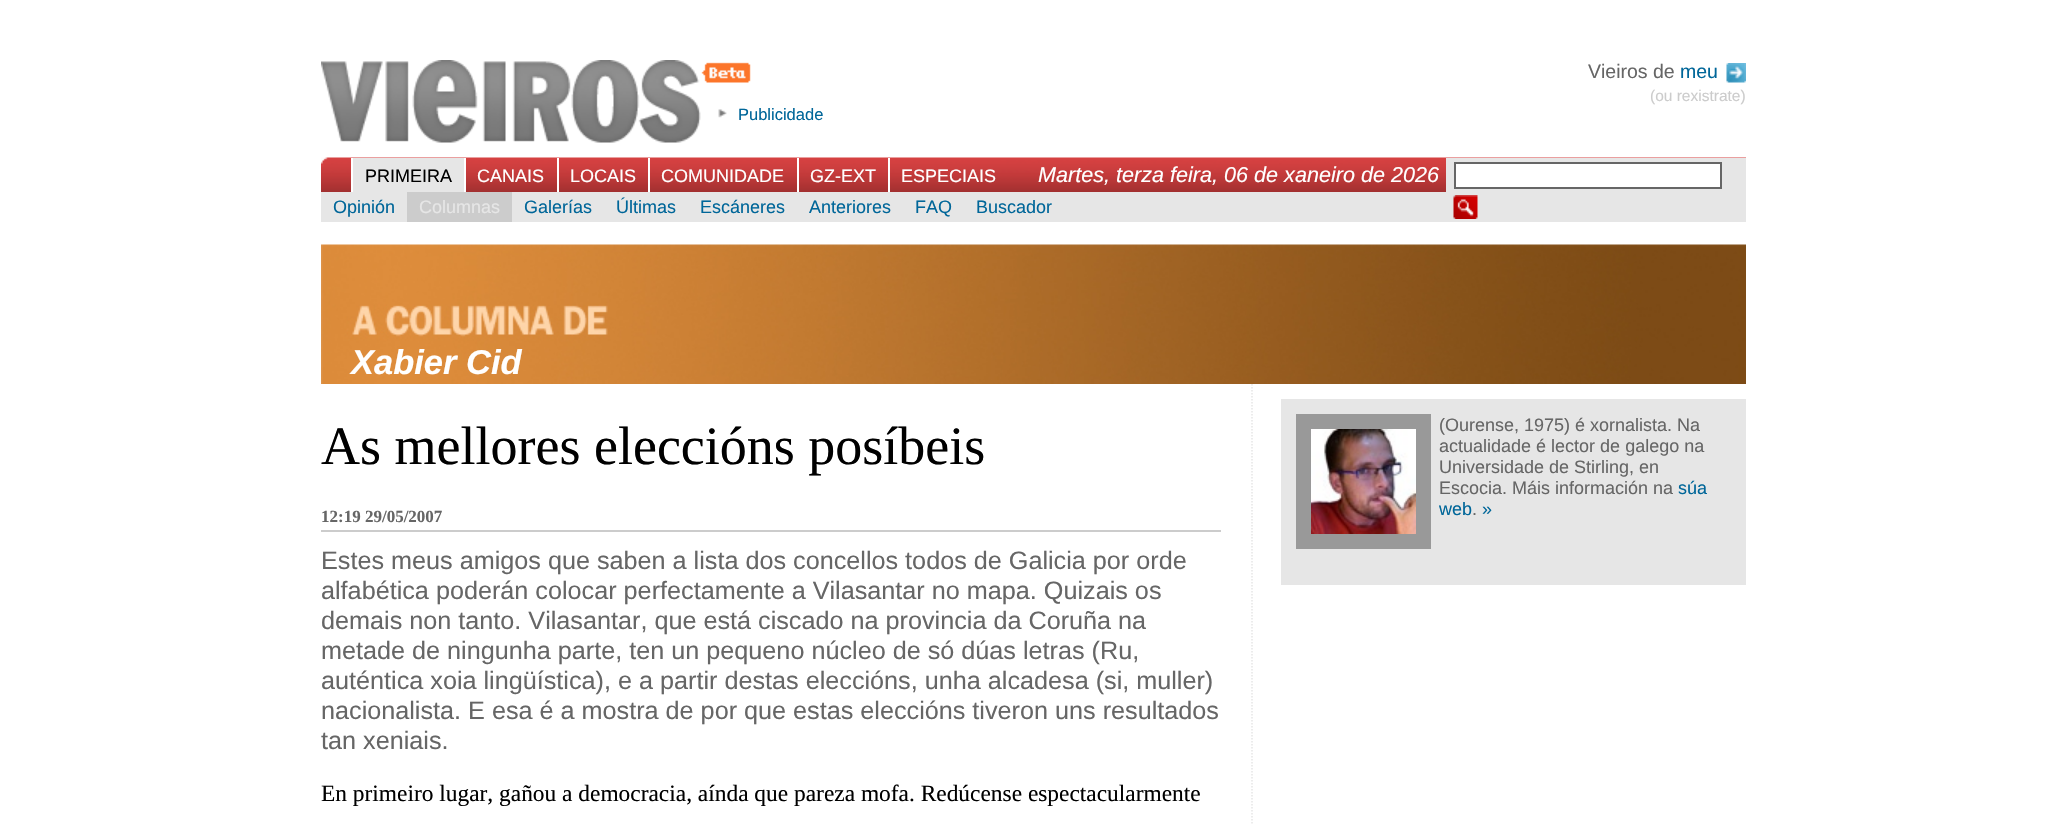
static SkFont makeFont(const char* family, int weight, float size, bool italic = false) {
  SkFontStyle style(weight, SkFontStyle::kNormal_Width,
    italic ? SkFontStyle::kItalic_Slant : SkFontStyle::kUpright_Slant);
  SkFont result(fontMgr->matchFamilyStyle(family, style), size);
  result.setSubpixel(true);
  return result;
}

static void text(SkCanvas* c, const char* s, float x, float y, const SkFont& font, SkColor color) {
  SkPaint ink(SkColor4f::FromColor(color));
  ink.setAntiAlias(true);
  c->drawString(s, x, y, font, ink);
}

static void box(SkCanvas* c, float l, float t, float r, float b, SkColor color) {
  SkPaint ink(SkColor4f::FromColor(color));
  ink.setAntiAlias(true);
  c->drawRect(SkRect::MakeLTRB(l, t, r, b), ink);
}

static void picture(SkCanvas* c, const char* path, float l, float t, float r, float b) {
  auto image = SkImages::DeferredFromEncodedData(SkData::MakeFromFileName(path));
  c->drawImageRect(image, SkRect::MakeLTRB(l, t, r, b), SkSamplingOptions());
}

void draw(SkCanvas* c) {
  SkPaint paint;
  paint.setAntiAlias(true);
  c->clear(0xffffffff);
  picture(c, "img_01.png", 321, 60, 751, 143);
  SkFont face1 = makeFont("Liberation Sans", 400, 19.5f);
  text(c, "Vieiros de", 1588, 78, face1, 0xff666666);
  text(c, "meu", 1680, 78, face1, 0xff006699);
  picture(c, "img_02.png", 1726, 63, 1746, 83);
  SkFont face2 = makeFont("Liberation Sans", 400, 15.5f);
  text(c, "(ou rexistrate)", 1650, 101, face2, 0xffcccccc);
  picture(c, "img_03.png", 718, 109, 727, 118);
  SkFont face3 = makeFont("Liberation Sans", 400, 16.5f);
  text(c, "Publicidade", 738, 120, face3, 0xff006699);
  picture(c, "img_04.png", 321, 157, 1746, 192);
  box(c, 351, 158, 353, 192, 0xffffffff);
  box(c, 353, 158, 464, 192, 0xffe6e6e6);
  SkFont face4 = makeFont("Liberation Sans", 400, 18);
  text(c, "PRIMEIRA", 365, 182, face4, 0xff000000);
  box(c, 464, 158, 466, 192, 0xffffffff);
  text(c, "CANAIS", 477, 182, face4, 0xffffffff);
  box(c, 557, 158, 559, 192, 0xffffffff);
  text(c, "LOCAIS", 570, 182, face4, 0xffffffff);
  box(c, 648, 158, 650, 192, 0xffffffff);
  text(c, "COMUNIDADE", 661, 182, face4, 0xffffffff);
  box(c, 797, 158, 799, 192, 0xffffffff);
  text(c, "GZ-EXT", 810, 182, face4, 0xffffffff);
  box(c, 888, 158, 890, 192, 0xffffffff);
  text(c, "ESPECIAIS", 901, 182, face4, 0xffffffff);
  SkFont face5 = makeFont("Liberation Sans", 400, 21.6f, true);
  text(c, "Martes, terza feira, 06 de xaneiro de 2026", 1038, 182, face5, 0xffffffff);
  box(c, 1446, 158, 1746, 192, 0xffe6e6e6);
  paint.setColor(0xffffffff);
  c->drawRect(SkRect::MakeLTRB(1455, 163, 1721, 188), paint);
  paint.setStyle(SkPaint::kStroke_Style);
  paint.setStrokeWidth(2);
  paint.setColor(0xff666666);
  c->drawRect(SkRect::MakeLTRB(1455, 163, 1721, 188), paint);
  box(c, 321, 192, 1746, 222, 0xffe6e6e6);
  picture(c, "img_05.png", 1453, 195, 1478, 219);
  text(c, "Opinión", 333, 213, face4, 0xff006699);
  box(c, 407, 192, 512, 222, 0xffcccccc);
  text(c, "Columnas", 419, 213, face4, 0xffe6e6e6);
  text(c, "Galerías", 524, 213, face4, 0xff006699);
  text(c, "Últimas", 616, 213, face4, 0xff006699);
  text(c, "Escáneres", 700, 213, face4, 0xff006699);
  text(c, "Anteriores", 809, 213, face4, 0xff006699);
  text(c, "FAQ", 915, 213, face4, 0xff006699);
  text(c, "Buscador", 976, 213, face4, 0xff006699);
  picture(c, "img_06.png", 321, 244, 1746, 384);
  SkFont face6 = makeFont("Liberation Sans", 700, 34.5f, true);
  text(c, "Xabier Cid", 351, 374, face6, 0xffffffff);
  paint.setStrokeWidth(1.5f);
  paint.setColor(0xffe6e6e6);
  paint.setPathEffect(SkDashPathEffect::Make({{1.5f, 1.5f}}, 0));
  c->drawPath(SkPathBuilder().moveTo(1252, 384).lineTo(1252, 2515.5f).detach(), paint);
  paint.setPathEffect(nullptr);
  SkFont face7 = makeFont("Liberation Serif", 400, 54);
  text(c, "As mellores eleccións posíbeis", 321, 464, face7, 0xff000000);
  box(c, 321, 530, 1221, 532, 0xffcccccc);
  SkFont face8 = makeFont("Liberation Serif", 700, 17);
  text(c, "12:19 29/05/2007", 321, 522, face8, 0xff666666);
  SkFont face9 = makeFont("Liberation Sans", 400, 25.2f);
  text(c, "Estes meus amigos que saben a lista dos concellos todos de Galicia por orde", 321, 569, face9, 0xff666666);
  text(c, "alfabética poderán colocar perfectamente a Vilasantar no mapa. Quizais os", 321, 599, face9, 0xff666666);
  text(c, "demais non tanto. Vilasantar, que está ciscado na provincia da Coruña na", 321, 629, face9, 0xff666666);
  text(c, "metade de ningunha parte, ten un pequeno núcleo de só dúas letras (Ru,", 321, 659, face9, 0xff666666);
  text(c, "auténtica xoia lingüística), e a partir destas eleccións, unha alcadesa (si, muller)", 321, 689, face9, 0xff666666);
  text(c, "nacionalista. E esa é a mostra de por que estas eleccións tiveron uns resultados", 321, 719, face9, 0xff666666);
  text(c, "tan xeniais.", 321, 749, face9, 0xff666666);
  SkFont face10 = makeFont("Liberation Serif", 400, 23.4f);
  text(c, "En primeiro lugar, gañou a democracia, aínda que pareza mofa. Redúcense espectacularmente", 321, 801, face10, 0xff000000);
  box(c, 1281, 399, 1746, 585, 0xffe6e6e6);
  paint.setStrokeWidth(15);
  paint.setColor(0xff999999);
  c->drawRect(SkRect::MakeLTRB(1303.5f, 421.5f, 1423.5f, 541.5f), paint);
  picture(c, "img_07.png", 1311, 429, 1416, 534);
  text(c, "(Ourense, 1975) é xornalista. Na", 1439, 431, face4, 0xff666666);
  text(c, "actualidade é lector de galego na", 1439, 452, face4, 0xff666666);
  text(c, "Universidade de Stirling, en", 1439, 473, face4, 0xff666666);
  text(c, "Escocia. Máis información na", 1439, 494, face4, 0xff666666);
  text(c, "súa", 1678, 494, face4, 0xff006699);
  text(c, "web", 1439, 515, face4, 0xff006699);
  text(c, ".", 1472, 515, face4, 0xff666666);
  text(c, "»", 1482, 515, face4, 0xff006699);
}
